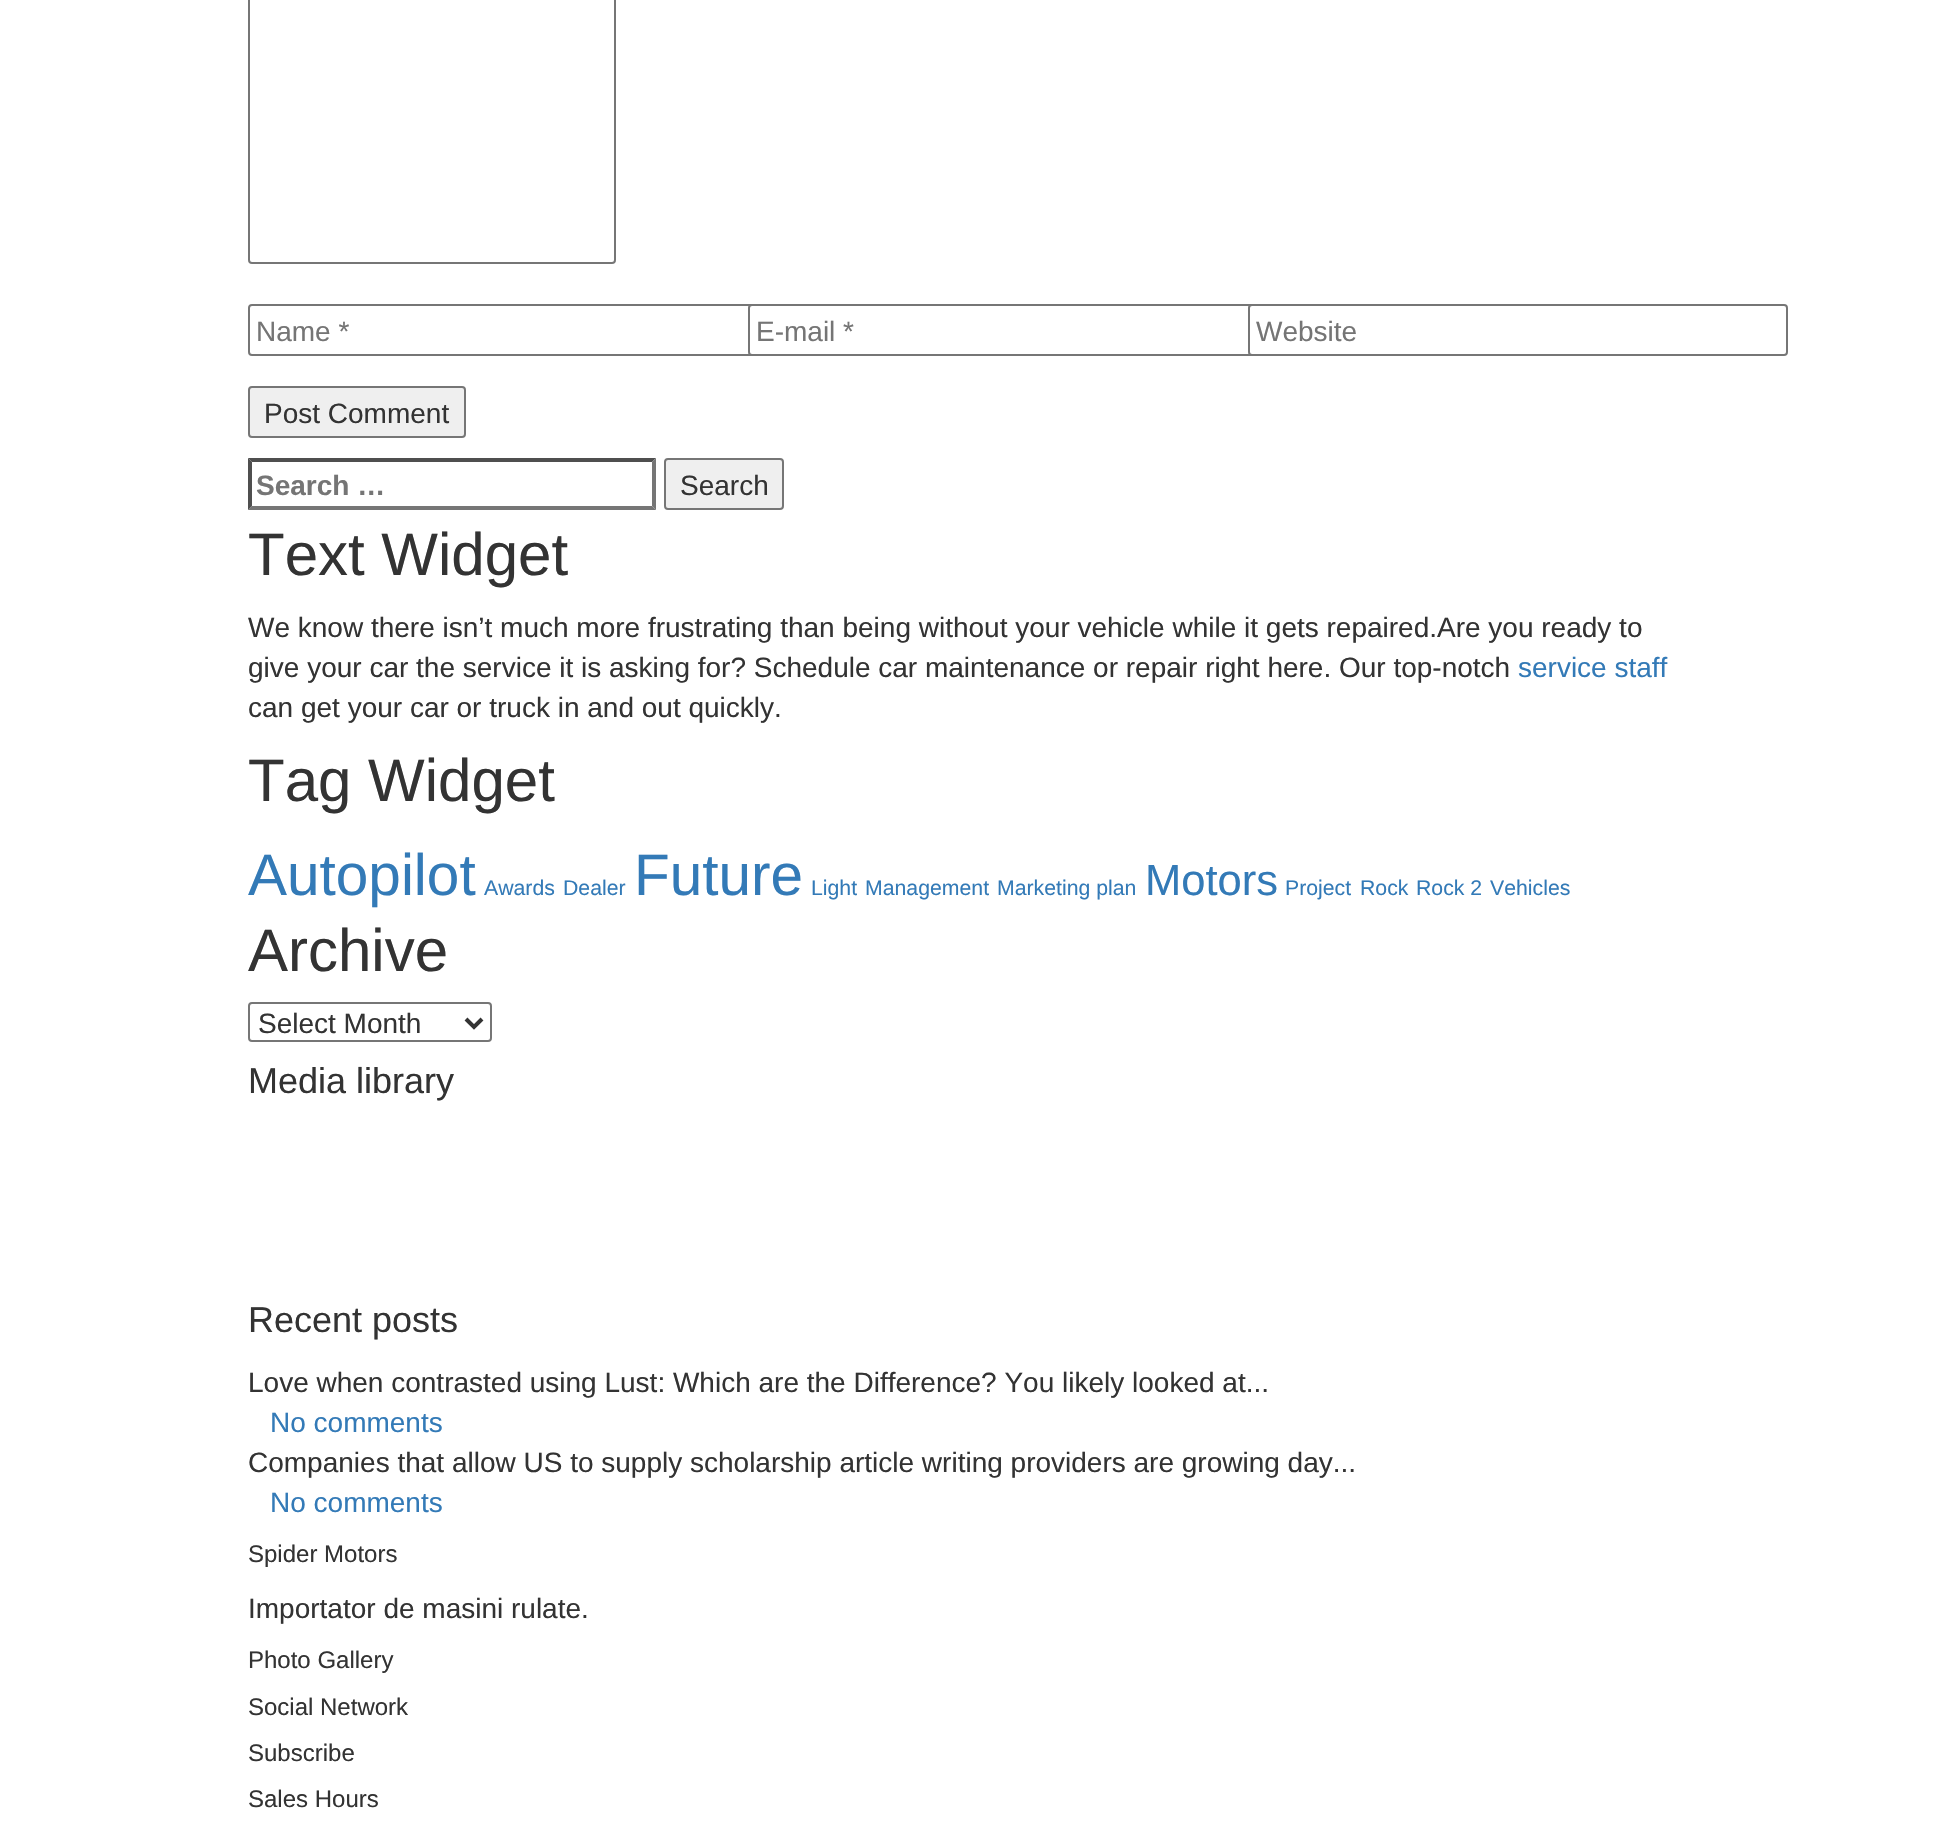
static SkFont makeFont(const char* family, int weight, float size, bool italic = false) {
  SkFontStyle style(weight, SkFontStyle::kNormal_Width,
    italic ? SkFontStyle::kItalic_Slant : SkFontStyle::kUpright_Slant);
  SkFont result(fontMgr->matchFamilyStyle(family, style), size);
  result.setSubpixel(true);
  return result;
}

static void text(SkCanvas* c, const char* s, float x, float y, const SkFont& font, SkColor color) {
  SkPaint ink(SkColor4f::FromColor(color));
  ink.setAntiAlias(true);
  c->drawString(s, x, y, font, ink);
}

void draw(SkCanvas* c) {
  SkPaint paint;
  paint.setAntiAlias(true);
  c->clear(0xffffffff);
  paint.setStyle(SkPaint::kStroke_Style);
  paint.setStrokeWidth(2);
  paint.setColor(0xff767676);
  c->drawRoundRect(SkRect::MakeLTRB(249, -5, 615, 263), 3, 3, paint);
  c->drawRoundRect(SkRect::MakeLTRB(249, 305, 787, 355), 3, 3, paint);
  SkFont face1 = makeFont("Liberation Sans", 400, 28);
  text(c, "Name *", 256, 341, face1, 0xff757575);
  paint.setStyle(SkPaint::kFill_Style);
  paint.setColor(0xffffffff);
  c->drawRoundRect(SkRect::MakeLTRB(749, 305, 1287, 355), 3, 3, paint);
  paint.setStyle(SkPaint::kStroke_Style);
  paint.setColor(0xff767676);
  c->drawRoundRect(SkRect::MakeLTRB(749, 305, 1287, 355), 3, 3, paint);
  text(c, "E-mail *", 756, 341, face1, 0xff757575);
  paint.setStyle(SkPaint::kFill_Style);
  paint.setColor(0xffffffff);
  c->drawRoundRect(SkRect::MakeLTRB(1249, 305, 1787, 355), 3, 3, paint);
  paint.setStyle(SkPaint::kStroke_Style);
  paint.setColor(0xff767676);
  c->drawRoundRect(SkRect::MakeLTRB(1249, 305, 1787, 355), 3, 3, paint);
  text(c, "Website", 1256, 341, face1, 0xff757575);
  paint.setStyle(SkPaint::kFill_Style);
  paint.setColor(0xffefefef);
  c->drawRoundRect(SkRect::MakeLTRB(249, 387, 465, 437), 3, 3, paint);
  paint.setStyle(SkPaint::kStroke_Style);
  paint.setColor(0xff767676);
  c->drawRoundRect(SkRect::MakeLTRB(249, 387, 465, 437), 3, 3, paint);
  text(c, "Post Comment", 264, 423, face1, 0xff333333);
  paint.setStyle(SkPaint::kFill_Style);
  paint.setColor(0xff4f4f4f);
  c->drawPath(SkPathBuilder().moveTo(248, 458).lineTo(656, 458).lineTo(652, 462).lineTo(252, 462).close().detach(), paint);
  paint.setColor(0xff767676);
  c->drawPath(SkPathBuilder().moveTo(656, 458).lineTo(656, 510).lineTo(652, 506).lineTo(652, 462).close().detach(), paint);
  c->drawPath(SkPathBuilder().moveTo(656, 510).lineTo(248, 510).lineTo(252, 506).lineTo(652, 506).close().detach(), paint);
  paint.setColor(0xff4f4f4f);
  c->drawPath(SkPathBuilder().moveTo(248, 510).lineTo(248, 458).lineTo(252, 462).lineTo(252, 506).close().detach(), paint);
  SkFont face2 = makeFont("Liberation Sans", 700, 28);
  text(c, "Search …", 256, 495, face2, 0xff757575);
  paint.setColor(0xffefefef);
  c->drawRoundRect(SkRect::MakeLTRB(665, 459, 783, 509), 3, 3, paint);
  paint.setStyle(SkPaint::kStroke_Style);
  paint.setColor(0xff767676);
  c->drawRoundRect(SkRect::MakeLTRB(665, 459, 783, 509), 3, 3, paint);
  text(c, "Search", 680, 495, face1, 0xff333333);
  SkFont face3 = makeFont("Liberation Sans", 400, 60);
  text(c, "Text Widget", 248, 575, face3, 0xff333333);
  text(c, "We know there isn’t much more frustrating than being without your vehicle while it gets repaired.Are you ready to", 248, 637, face1, 0xff333333);
  text(c, "give your car the service it is asking for? Schedule car maintenance or repair right here. Our top-notch", 248, 677, face1, 0xff333333);
  text(c, "service staff", 1518, 677, face1, 0xff337ab7);
  text(c, "can get your car or truck in and out quickly.", 248, 717, face1, 0xff333333);
  text(c, "Tag Widget", 248, 801, face3, 0xff333333);
  SkFont face4 = makeFont("Liberation Sans", 400, 58.5f);
  text(c, "Autopilot", 248, 895, face4, 0xff337ab7);
  SkFont face5 = makeFont("Liberation Sans", 400, 21.25f);
  text(c, "Awards", 484, 895, face5, 0xff337ab7);
  text(c, "Dealer", 563, 895, face5, 0xff337ab7);
  text(c, "Future", 634, 895, face4, 0xff337ab7);
  text(c, "Light", 811, 895, face5, 0xff337ab7);
  text(c, "Management", 865, 895, face5, 0xff337ab7);
  text(c, "Marketing plan", 997, 895, face5, 0xff337ab7);
  SkFont face6 = makeFont("Liberation Sans", 400, 43.5f);
  text(c, "Motors", 1145, 895, face6, 0xff337ab7);
  text(c, "Project", 1285, 895, face5, 0xff337ab7);
  text(c, "Rock", 1360, 895, face5, 0xff337ab7);
  text(c, "Rock 2", 1416, 895, face5, 0xff337ab7);
  text(c, "Vehicles", 1490, 895, face5, 0xff337ab7);
  text(c, "Archive", 248, 971, face3, 0xff333333);
  c->drawRoundRect(SkRect::MakeLTRB(249, 1003, 491, 1041), 3, 3, paint);
  paint.setStrokeWidth(4);
  paint.setColor(0xff333333);
  c->drawPath(SkPathBuilder().moveTo(466, 1019).lineTo(474, 1027).lineTo(482, 1019).detach(), paint);
  text(c, "Select Month", 258, 1033, face1, 0xff333333);
  SkFont face7 = makeFont("Liberation Sans", 400, 36);
  text(c, "Media library", 248, 1093, face7, 0xff333333);
  text(c, "Recent posts", 248, 1332, face7, 0xff333333);
  text(c, "Love when contrasted using Lust: Which are the Difference? You likely looked at...", 248, 1392, face1, 0xff333333);
  text(c, "No comments", 270, 1432, face1, 0xff337ab7);
  text(c, "Companies that allow US to supply scholarship article writing providers are growing day...", 248, 1472, face1, 0xff333333);
  text(c, "No comments", 270, 1512, face1, 0xff337ab7);
  SkFont face8 = makeFont("Liberation Sans", 400, 24);
  text(c, "Spider Motors", 248, 1562, face8, 0xff333333);
  text(c, "Importator de masini rulate.", 248, 1618, face1, 0xff333333);
  text(c, "Photo Gallery", 248, 1668, face8, 0xff333333);
  text(c, "Social Network", 248, 1715, face8, 0xff333333);
  text(c, "Subscribe", 248, 1761, face8, 0xff333333);
  text(c, "Sales Hours", 248, 1807, face8, 0xff333333);
}
